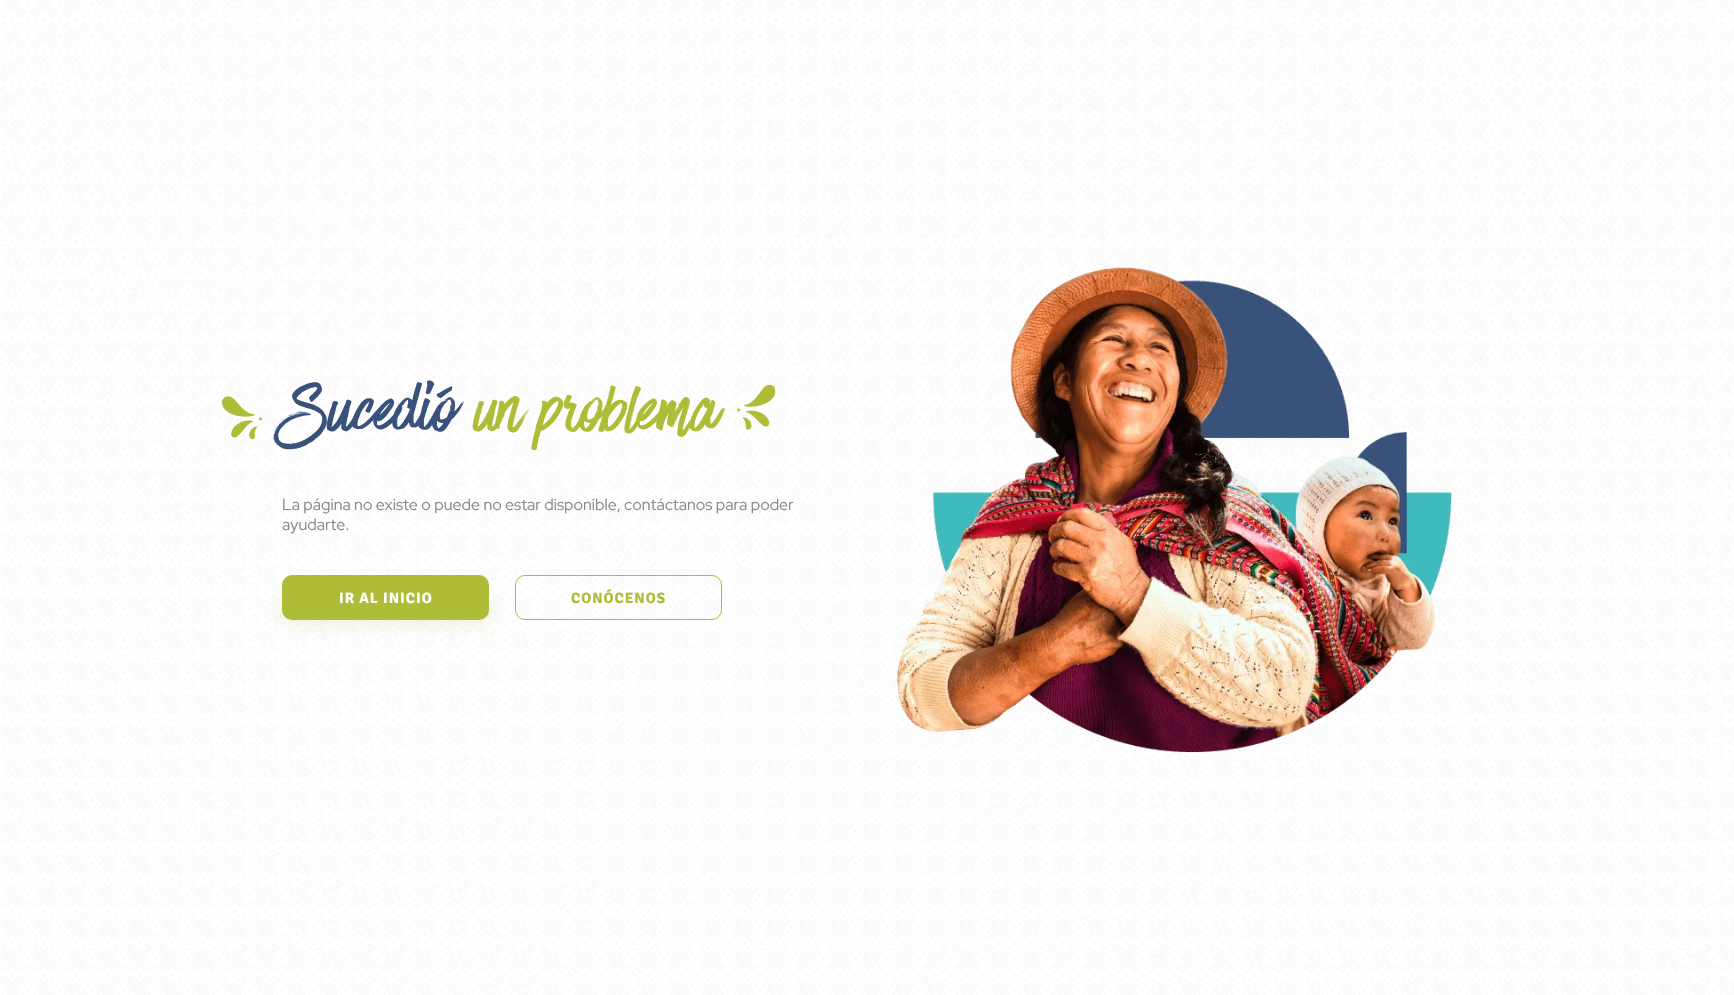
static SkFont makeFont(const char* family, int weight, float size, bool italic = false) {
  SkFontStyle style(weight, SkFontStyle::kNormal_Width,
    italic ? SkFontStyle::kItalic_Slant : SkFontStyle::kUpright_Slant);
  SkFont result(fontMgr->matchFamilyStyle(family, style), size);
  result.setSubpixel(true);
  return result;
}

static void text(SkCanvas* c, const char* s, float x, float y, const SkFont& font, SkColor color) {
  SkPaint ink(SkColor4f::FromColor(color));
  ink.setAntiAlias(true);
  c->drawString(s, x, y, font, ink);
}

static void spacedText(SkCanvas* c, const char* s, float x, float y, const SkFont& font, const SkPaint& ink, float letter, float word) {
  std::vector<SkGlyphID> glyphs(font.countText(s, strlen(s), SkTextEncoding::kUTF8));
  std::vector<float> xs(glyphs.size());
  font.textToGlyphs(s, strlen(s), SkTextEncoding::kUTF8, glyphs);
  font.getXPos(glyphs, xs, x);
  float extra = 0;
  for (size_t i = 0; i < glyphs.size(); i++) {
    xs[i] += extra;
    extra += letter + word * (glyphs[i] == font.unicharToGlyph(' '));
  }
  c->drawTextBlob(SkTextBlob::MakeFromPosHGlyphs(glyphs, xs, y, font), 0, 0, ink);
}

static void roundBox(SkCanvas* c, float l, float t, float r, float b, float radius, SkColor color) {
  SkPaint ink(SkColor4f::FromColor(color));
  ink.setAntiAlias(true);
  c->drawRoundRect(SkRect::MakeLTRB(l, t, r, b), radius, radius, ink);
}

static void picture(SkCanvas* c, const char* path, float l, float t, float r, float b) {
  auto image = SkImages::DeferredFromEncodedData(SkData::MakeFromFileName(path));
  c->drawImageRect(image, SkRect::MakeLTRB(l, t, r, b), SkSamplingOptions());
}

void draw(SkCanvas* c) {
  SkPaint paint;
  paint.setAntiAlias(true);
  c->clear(0xffffffff);
  picture(c, "img_01.png", 0, 0, 1734, 995);
  picture(c, "img_02.png", 222, 396, 262, 439);
  SkFont face1 = makeFont("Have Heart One", 400, 80);
  text(c, "Sucedió", 282, 430, face1, 0xff38527c);
  text(c, "un problema", 473, 430, face1, 0xffaebc37);
  picture(c, "img_03.png", 737, 385, 776, 430);
  SkFont face2 = makeFont("Red Hat Display", 400, 16);
  text(c, "La página no existe o puede no estar disponible, contáctanos para poder", 282, 510, face2, 0xff88898c);
  text(c, "ayudarte.", 282, 530, face2, 0xff88898c);
  paint.setColor(0x4daebc37);
  paint.setMaskFilter(SkMaskFilter::MakeBlur(kNormal_SkBlurStyle, 10));
  c->drawRoundRect(SkRect::MakeLTRB(282, 600, 489, 620), 8, 8, paint);
  paint.setMaskFilter(nullptr);
  roundBox(c, 282, 575, 489, 620, 10, 0xffaebc37);
  SkFont face3 = makeFont("Signika", 700, 15);
  paint.setColor(0xffffffff);
  spacedText(c, "IR AL INICIO", 339, 603, face3, paint, 1, 0);
  paint.setStyle(SkPaint::kStroke_Style);
  paint.setStrokeWidth(1);
  paint.setColor(0xffaebc37);
  c->drawRoundRect(SkRect::MakeLTRB(515.5f, 575.5f, 721.5f, 619.5f), 9.5f, 9.5f, paint);
  paint.setStyle(SkPaint::kFill_Style);
  spacedText(c, "CONÓCENOS", 571, 603, face3, paint, 1, 0);
  picture(c, "img_04.png", 897, 267, 1452, 753);
}
